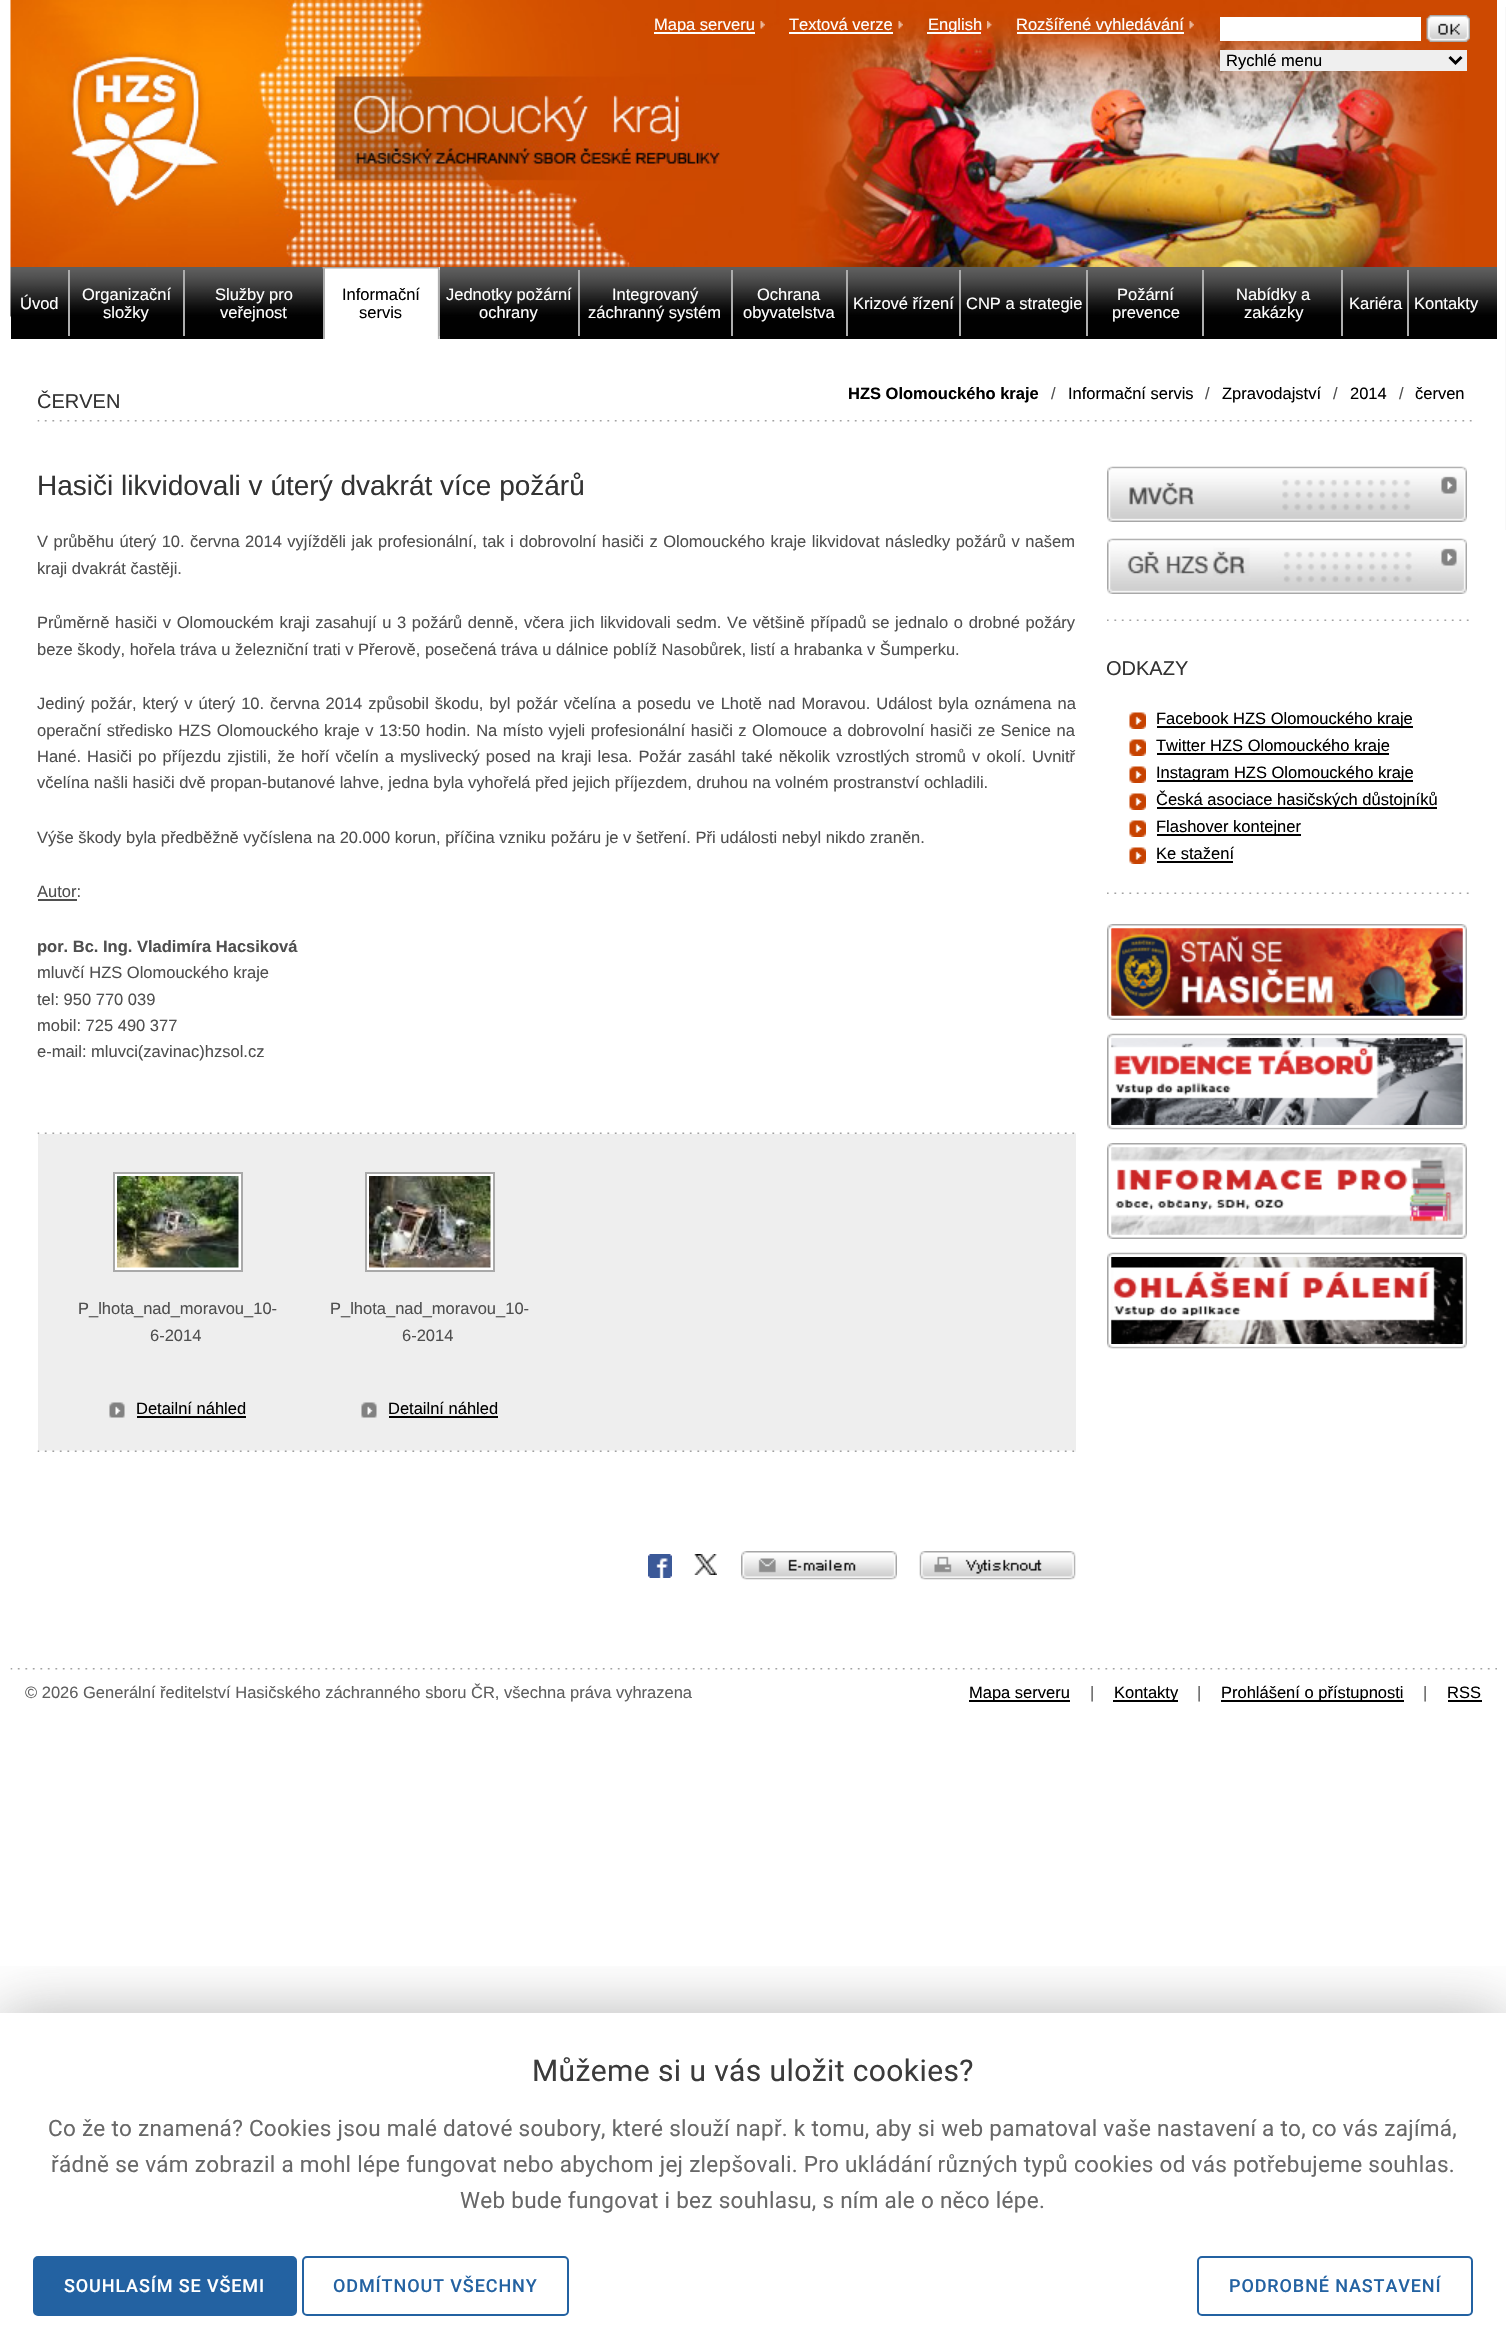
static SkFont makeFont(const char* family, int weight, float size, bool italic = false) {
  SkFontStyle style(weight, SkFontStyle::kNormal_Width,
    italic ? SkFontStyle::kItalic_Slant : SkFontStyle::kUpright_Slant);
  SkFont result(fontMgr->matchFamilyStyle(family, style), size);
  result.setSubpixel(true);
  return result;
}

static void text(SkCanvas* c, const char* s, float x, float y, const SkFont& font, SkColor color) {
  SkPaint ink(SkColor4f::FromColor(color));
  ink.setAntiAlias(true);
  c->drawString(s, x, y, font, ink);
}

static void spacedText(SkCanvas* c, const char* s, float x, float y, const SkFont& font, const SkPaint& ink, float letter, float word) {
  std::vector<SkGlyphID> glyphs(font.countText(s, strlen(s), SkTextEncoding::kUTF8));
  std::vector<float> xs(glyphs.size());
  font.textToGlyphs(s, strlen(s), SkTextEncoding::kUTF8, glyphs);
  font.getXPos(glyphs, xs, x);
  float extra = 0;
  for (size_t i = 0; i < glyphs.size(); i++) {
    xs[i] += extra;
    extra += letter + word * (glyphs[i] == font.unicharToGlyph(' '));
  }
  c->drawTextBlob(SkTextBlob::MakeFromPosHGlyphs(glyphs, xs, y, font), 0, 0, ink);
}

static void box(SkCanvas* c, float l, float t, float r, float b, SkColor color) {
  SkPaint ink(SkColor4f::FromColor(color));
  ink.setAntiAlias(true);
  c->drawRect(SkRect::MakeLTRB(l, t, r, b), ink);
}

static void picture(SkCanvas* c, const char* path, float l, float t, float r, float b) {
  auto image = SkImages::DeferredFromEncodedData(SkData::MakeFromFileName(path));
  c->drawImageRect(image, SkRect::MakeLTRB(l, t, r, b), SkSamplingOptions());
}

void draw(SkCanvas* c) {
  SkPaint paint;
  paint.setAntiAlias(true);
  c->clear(0xffffffff);
  box(c, 1505, 7, 1506, 530, 0xfff8f8f8);
  picture(c, "img_01.png", 10, 0, 1497, 267);
  box(c, 654, 32, 755, 34, 0xffffffff);
  SkFont face1 = makeFont("Liberation Sans", 400, 16.5f);
  text(c, "Mapa serveru", 654, 30, face1, 0xffffffff);
  picture(c, "img_02.png", 760, 21, 765, 29);
  text(c, "Textová verze", 789, 30, face1, 0xffffffff);
  box(c, 789, 32, 893, 34, 0xffffffff);
  picture(c, "img_03.png", 898, 21, 903, 29);
  box(c, 927, 32, 981, 34, 0xffffffff);
  text(c, "English", 928, 30, face1, 0xffffffff);
  picture(c, "img_04.png", 987, 21, 992, 29);
  box(c, 1017, 32, 1184, 34, 0xffffffff);
  text(c, "Rozšířené vyhledávání", 1016, 30, face1, 0xffffffff);
  picture(c, "img_05.png", 1189, 21, 1194, 29);
  box(c, 1220, 17, 1421, 41, 0xffffffff);
  picture(c, "img_06.png", 1426, 15, 1470, 42);
  box(c, 1220, 50, 1467, 71, 0xffefefef);
  paint.setStyle(SkPaint::kStroke_Style);
  paint.setStrokeWidth(3);
  paint.setColor(0xff000000);
  c->drawPath(SkPathBuilder().moveTo(1449.5f, 57).lineTo(1455.5f, 63).lineTo(1461.5f, 57).detach(), paint);
  text(c, "Rychlé menu", 1226, 66, face1, 0xff000000);
  box(c, 11, 316, 1497, 339, 0xff010101);
  picture(c, "img_07.png", 10, 267, 1497, 317);
  text(c, "Úvod", 20, 309, face1, 0xffffffff);
  box(c, 68, 270, 70, 336, 0xffadadad);
  text(c, "Organizační", 82, 300, face1, 0xffffffff);
  text(c, "složky", 103, 318, face1, 0xffffffff);
  box(c, 183, 270, 185, 336, 0xffadadad);
  text(c, "Služby pro", 215, 300, face1, 0xffffffff);
  text(c, "veřejnost", 220, 318, face1, 0xffffffff);
  box(c, 325, 267, 440, 339, 0xffffffff);
  picture(c, "img_08.png", 322, 267, 440, 339);
  box(c, 323, 267, 325, 339, 0xffadadad);
  text(c, "Informační", 342, 300, face1, 0xff000000);
  text(c, "servis", 359, 318, face1, 0xff000000);
  box(c, 438, 270, 440, 336, 0xffadadad);
  text(c, "Jednotky požární", 446, 300, face1, 0xffffffff);
  text(c, "ochrany", 479, 318, face1, 0xffffffff);
  box(c, 578, 270, 580, 336, 0xffadadad);
  text(c, "Integrovaný", 612, 300, face1, 0xffffffff);
  text(c, "záchranný systém", 588, 318, face1, 0xffffffff);
  box(c, 731, 270, 733, 336, 0xffadadad);
  text(c, "Ochrana", 757, 300, face1, 0xffffffff);
  text(c, "obyvatelstva", 743, 318, face1, 0xffffffff);
  box(c, 846, 270, 848, 336, 0xffadadad);
  text(c, "Krizové řízení", 853, 309, face1, 0xffffffff);
  box(c, 959, 270, 961, 336, 0xffadadad);
  text(c, "CNP a strategie", 966, 309, face1, 0xffffffff);
  box(c, 1086, 270, 1088, 336, 0xffadadad);
  text(c, "Požární", 1117, 300, face1, 0xffffffff);
  text(c, "prevence", 1112, 318, face1, 0xffffffff);
  box(c, 1202, 270, 1204, 336, 0xffadadad);
  text(c, "Nabídky a", 1236, 300, face1, 0xffffffff);
  text(c, "zakázky", 1244, 318, face1, 0xffffffff);
  box(c, 1341, 270, 1343, 336, 0xffadadad);
  text(c, "Kariéra", 1349, 309, face1, 0xffffffff);
  box(c, 1407, 270, 1409, 336, 0xffadadad);
  text(c, "Kontakty", 1414, 309, face1, 0xffffffff);
  picture(c, "img_09.png", 37, 420, 1472, 422);
  SkFont face2 = makeFont("Liberation Sans", 400, 20);
  text(c, "ČERVEN", 37, 408, face2, 0xff333333);
  SkFont face3 = makeFont("Liberation Sans", 700, 16.5f);
  text(c, "HZS Olomouckého kraje", 848, 399, face3, 0xff000000);
  text(c, "/", 1051, 399, face1, 0xff4f4f4f);
  text(c, "Informační servis", 1068, 399, face1, 0xff000000);
  text(c, "/", 1205, 399, face1, 0xff4f4f4f);
  text(c, "Zpravodajství", 1222, 399, face1, 0xff000000);
  text(c, "/", 1333, 399, face1, 0xff4f4f4f);
  text(c, "2014", 1350, 399, face1, 0xff000000);
  text(c, "/", 1399, 399, face1, 0xff4f4f4f);
  text(c, "červen", 1415, 399, face1, 0xff000000);
  SkFont face4 = makeFont("Liberation Sans", 400, 28);
  text(c, "Hasiči likvidovali v úterý dvakrát více požárů", 37, 495, face4, 0xff333333);
  paint.setStyle(SkPaint::kFill_Style);
  paint.setColor(0xff4f4f4f);
  spacedText(c, "V průběhu úterý 10. června 2014 vyjížděli jak profesionální, tak i dobrovolní hasiči z Olomouckého kraje likvidovat následky požárů v našem", 37, 547, face1, paint, 0, 0.9f);
  text(c, "kraji dvakrát častěji.", 37, 574, face1, 0xff4f4f4f);
  spacedText(c, "Průměrně hasiči v Olomouckém kraji zasahují u 3 požárů denně, včera jich likvidovali sedm. Ve většině případů se jednalo o drobné požáry", 37, 628, face1, paint, 0, 1);
  text(c, "beze škody, hořela tráva u železniční trati v Přerově, posečená tráva u dálnice poblíž Nasobůrek, listí a hrabanka v Šumperku.", 37, 655, face1, 0xff4f4f4f);
  spacedText(c, "Jediný požár, který v úterý 10. června 2014 způsobil škodu, byl požár včelína a posedu ve Lhotě nad Moravou. Událost byla oznámena na", 37, 709, face1, paint, 0, 1.4f);
  spacedText(c, "operační středisko HZS Olomouckého kraje v 13:50 hodin. Na místo vyjeli profesionální hasiči z Olomouce a dobrovolní hasiči ze Senice na", 37, 736, face1, paint, 0, 0.9f);
  spacedText(c, "Hané. Hasiči po příjezdu zjistili, že hoří včelín a myslivecký posed na kraji lesa. Požár zasáhl také několik vzrostlých stromů v okolí. Uvnitř", 37, 762, face1, paint, 0, 1.5f);
  text(c, "včelína našli hasiči dvě propan-butanové lahve, jedna byla vyhořelá před jejich příjezdem, druhou na volném prostranství ochladili.", 37, 788, face1, 0xff4f4f4f);
  text(c, "Výše škody byla předběžně vyčíslena na 20.000 korun, příčina vzniku požáru je v šetření. Při události nebyl nikdo zraněn.", 37, 843, face1, 0xff4f4f4f);
  text(c, "Autor:", 37, 897, face1, 0xff4f4f4f);
  box(c, 38, 899, 77, 901, 0xff4f4f4f);
  text(c, "por. Bc. Ing. Vladimíra Hacsiková", 37, 952, face3, 0xff4f4f4f);
  text(c, "mluvčí HZS Olomouckého kraje", 37, 978, face1, 0xff4f4f4f);
  text(c, "tel: 950 770 039", 37, 1005, face1, 0xff4f4f4f);
  text(c, "mobil: 725 490 377", 37, 1031, face1, 0xff4f4f4f);
  text(c, "e-mail: mluvci(zavinac)hzsol.cz", 37, 1057, face1, 0xff4f4f4f);
  box(c, 38, 1133, 1076, 1452, 0xffeeeeee);
  picture(c, "img_10.png", 37, 1132, 1076, 1134);
  picture(c, "img_11.png", 37, 1450, 1076, 1452);
  paint.setColor(0xffffffff);
  c->drawRect(SkRect::MakeLTRB(114, 1173, 242, 1271), paint);
  paint.setStyle(SkPaint::kStroke_Style);
  paint.setStrokeWidth(2);
  paint.setColor(0xffa9a9a9);
  c->drawRect(SkRect::MakeLTRB(114, 1173, 242, 1271), paint);
  picture(c, "img_12.png", 117, 1176, 239, 1268);
  text(c, "P_lhota_nad_moravou_10-", 78, 1314, face1, 0xff4f4f4f);
  text(c, "6-2014", 150, 1341, face1, 0xff4f4f4f);
  picture(c, "img_13.png", 109, 1402, 125, 1418);
  text(c, "Detailní náhled", 136, 1414, face1, 0xff000000);
  box(c, 137, 1416, 246, 1418, 0xff000000);
  paint.setStyle(SkPaint::kFill_Style);
  paint.setColor(0xffffffff);
  c->drawRect(SkRect::MakeLTRB(366, 1173, 494, 1271), paint);
  paint.setStyle(SkPaint::kStroke_Style);
  paint.setColor(0xffa9a9a9);
  c->drawRect(SkRect::MakeLTRB(366, 1173, 494, 1271), paint);
  picture(c, "img_14.png", 369, 1176, 491, 1268);
  text(c, "P_lhota_nad_moravou_10-", 330, 1314, face1, 0xff4f4f4f);
  text(c, "6-2014", 402, 1341, face1, 0xff4f4f4f);
  picture(c, "img_15.png", 361, 1402, 377, 1418);
  text(c, "Detailní náhled", 388, 1414, face1, 0xff000000);
  box(c, 389, 1416, 498, 1418, 0xff000000);
  picture(c, "img_16.png", 648, 1554, 672, 1578);
  picture(c, "img_17.png", 694, 1554, 717, 1575);
  picture(c, "img_18.png", 741, 1551, 897, 1580);
  picture(c, "img_19.png", 919, 1551, 1076, 1580);
  picture(c, "img_20.png", 1107, 619, 1469, 621);
  picture(c, "img_21.png", 1107, 466, 1467, 522);
  picture(c, "img_22.png", 1107, 538, 1467, 594);
  text(c, "ODKAZY", 1106, 675, face2, 0xff333333);
  picture(c, "img_20.png", 1107, 892, 1469, 894);
  picture(c, "img_23.png", 1129, 712, 1146, 729);
  box(c, 1157, 726, 1413, 728, 0xff000000);
  text(c, "Facebook HZS Olomouckého kraje", 1156, 724, face1, 0xff000000);
  picture(c, "img_23.png", 1129, 739, 1146, 756);
  box(c, 1157, 753, 1389, 755, 0xff000000);
  text(c, "Twitter HZS Olomouckého kraje", 1156, 751, face1, 0xff000000);
  picture(c, "img_23.png", 1129, 766, 1146, 783);
  box(c, 1157, 780, 1413, 782, 0xff000000);
  text(c, "Instagram HZS Olomouckého kraje", 1156, 778, face1, 0xff000000);
  picture(c, "img_23.png", 1129, 793, 1146, 810);
  box(c, 1157, 807, 1437, 809, 0xff000000);
  text(c, "Česká asociace hasičských důstojníků", 1156, 805, face1, 0xff000000);
  picture(c, "img_23.png", 1129, 820, 1146, 837);
  box(c, 1157, 834, 1301, 836, 0xff000000);
  text(c, "Flashover kontejner", 1156, 832, face1, 0xff000000);
  picture(c, "img_23.png", 1129, 847, 1146, 864);
  text(c, "Ke stažení", 1156, 859, face1, 0xff000000);
  box(c, 1157, 861, 1233, 863, 0xff000000);
  picture(c, "img_24.png", 1107, 924, 1467, 1020);
  picture(c, "img_25.png", 1111, 928, 1463, 1016);
  picture(c, "img_26.png", 1107, 1033, 1467, 1130);
  picture(c, "img_27.png", 1111, 1038, 1463, 1125);
  picture(c, "img_28.png", 1107, 1143, 1467, 1239);
  picture(c, "img_29.png", 1111, 1147, 1463, 1235);
  picture(c, "img_30.png", 1107, 1252, 1467, 1349);
  picture(c, "img_31.png", 1111, 1257, 1463, 1344);
  picture(c, "img_32.png", 10, 1668, 1497, 1670);
  text(c, "© 2026 Generální ředitelství Hasičského záchranného sboru ČR, všechna práva vyhrazena", 25, 1698, face1, 0xff5f5f5f);
  box(c, 969, 1700, 1070, 1702, 0xff000000);
  text(c, "Mapa serveru", 969, 1698, face1, 0xff000000);
  text(c, "|", 1090, 1698, face1, 0xff5f5f5f);
  box(c, 1113, 1700, 1178, 1702, 0xff000000);
  text(c, "Kontakty", 1114, 1698, face1, 0xff000000);
  text(c, "|", 1197, 1698, face1, 0xff5f5f5f);
  box(c, 1221, 1700, 1404, 1702, 0xff000000);
  text(c, "Prohlášení o přístupnosti", 1221, 1698, face1, 0xff000000);
  text(c, "|", 1423, 1698, face1, 0xff5f5f5f);
  text(c, "RSS", 1447, 1698, face1, 0xff000000);
  box(c, 1448, 1700, 1482, 1702, 0xff000000);
  c->save();
  c->clipRect(SkRect::MakeLTRB(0, 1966, 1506, 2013));
  paint.setStyle(SkPaint::kFill_Style);
  paint.setColor(0x663b3b3b);
  paint.setMaskFilter(SkMaskFilter::MakeBlur(kNormal_SkBlurStyle, 30));
  c->drawRect(SkRect::MakeLTRB(0, 2015, 1506, 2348), paint);
  paint.setMaskFilter(nullptr);
  c->restore();
  SkFont face5 = makeFont("Roboto", 400, 30);
  paint.setColor(0xff3b3b3b);
  spacedText(c, "Můžeme si u vás uložit cookies?", 532, 2081, face5, paint, 0.4f, 0);
  SkFont face6 = makeFont("Roboto", 400, 22.5f);
  paint.setColor(0xff686868);
  spacedText(c, "Co že to znamená? Cookies jsou malé datové soubory, které slouží např. k tomu, aby si web pamatoval vaše nastavení a to, co vás zajímá,", 48, 2136, face6, paint, 0.28f, 0);
  spacedText(c, "řádně se vám zobrazil a mohl lépe fungovat nebo abychom jej zlepšovali. Pro ukládání různých typů cookies od vás potřebujeme souhlas.", 51, 2172, face6, paint, 0.28f, 0);
  spacedText(c, "Web bude fungovat i bez souhlasu, s ním ale o něco lépe.", 460, 2208, face6, paint, 0.28f, 0);
  paint.setColor(0xff2362a2);
  c->drawRoundRect(SkRect::MakeLTRB(34, 2257, 296, 2315), 4, 4, paint);
  paint.setStyle(SkPaint::kStroke_Style);
  c->drawRoundRect(SkRect::MakeLTRB(34, 2257, 296, 2315), 4, 4, paint);
  SkFont face7 = makeFont("Roboto", 500, 18);
  paint.setStyle(SkPaint::kFill_Style);
  paint.setColor(0xffffffff);
  spacedText(c, "SOUHLASÍM SE VŠEMI", 64, 2292, face7, paint, 0.9f, 0);
  paint.setStyle(SkPaint::kStroke_Style);
  paint.setColor(0xff2362a2);
  c->drawRoundRect(SkRect::MakeLTRB(303, 2257, 568, 2315), 4, 4, paint);
  paint.setStyle(SkPaint::kFill_Style);
  spacedText(c, "ODMÍTNOUT VŠECHNY", 333, 2292, face7, paint, 0.9f, 0);
  paint.setStyle(SkPaint::kStroke_Style);
  c->drawRoundRect(SkRect::MakeLTRB(1198, 2257, 1472, 2315), 4, 4, paint);
  paint.setStyle(SkPaint::kFill_Style);
  spacedText(c, "PODROBNÉ NASTAVENÍ", 1229, 2292, face7, paint, 0.9f, 0);
}
